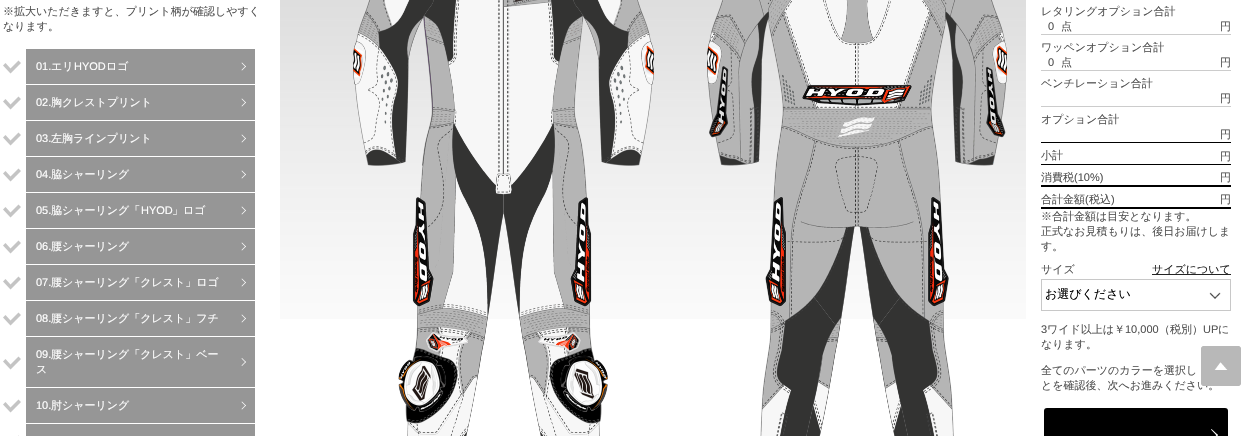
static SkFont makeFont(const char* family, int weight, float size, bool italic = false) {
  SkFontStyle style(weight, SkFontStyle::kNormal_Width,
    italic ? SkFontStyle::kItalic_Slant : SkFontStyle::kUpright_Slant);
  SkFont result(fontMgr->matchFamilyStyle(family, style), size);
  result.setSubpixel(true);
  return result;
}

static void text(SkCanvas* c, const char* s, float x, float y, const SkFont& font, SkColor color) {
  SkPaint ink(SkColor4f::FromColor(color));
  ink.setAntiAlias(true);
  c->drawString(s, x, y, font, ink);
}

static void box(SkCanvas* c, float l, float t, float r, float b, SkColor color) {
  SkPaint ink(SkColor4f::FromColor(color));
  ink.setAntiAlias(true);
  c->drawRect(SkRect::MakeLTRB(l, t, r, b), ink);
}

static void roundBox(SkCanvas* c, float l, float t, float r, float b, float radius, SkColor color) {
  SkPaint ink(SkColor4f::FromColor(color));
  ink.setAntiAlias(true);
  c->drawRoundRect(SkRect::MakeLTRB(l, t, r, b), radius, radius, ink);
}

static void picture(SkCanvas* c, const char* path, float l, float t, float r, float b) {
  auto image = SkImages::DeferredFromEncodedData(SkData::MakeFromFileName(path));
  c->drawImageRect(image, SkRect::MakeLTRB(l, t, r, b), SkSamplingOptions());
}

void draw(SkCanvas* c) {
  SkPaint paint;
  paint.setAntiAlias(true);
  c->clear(0xffffffff);
  picture(c, "img_01.png", 280, 0, 1026, 319);
  SkFont face1 = makeFont("WenQuanYi Zen Hei", 500, 11);
  text(c, "※拡大いただきますと、プリント柄が確認しやすく", 3, 15, face1, 0xff525252);
  text(c, "なります。", 3, 30, face1, 0xff525252);
  paint.setColor(0xffc4c4c4);
  c->drawPath(SkPathBuilder().moveTo(18.5f, 60.5f).lineTo(10.5f, 68.5f).lineTo(5.5f, 63).lineTo(3, 65.5f).lineTo(10.5f, 73.5f).lineTo(21, 63).close().moveTo(18.5f, 96.5f).lineTo(10.5f, 104.5f).lineTo(5.5f, 99).lineTo(3, 101.5f).lineTo(10.5f, 109.5f).lineTo(21, 99).close().detach(), paint);
  box(c, 26, 49, 255, 84, 0xff969696);
  SkFont face2 = makeFont("Liberation Sans", 400, 11);
  text(c, "01.", 36, 70, face2, 0xffffffff);
  text(c, "エリ", 51, 70, face1, 0xffffffff);
  text(c, "HYOD", 74, 70, face2, 0xffffffff);
  text(c, "ロゴ", 106, 70, face1, 0xffffffff);
  paint.setColor(0xffffffff);
  c->drawPath(SkPathBuilder().moveTo(242, 62.5f).lineTo(246, 66.5f).lineTo(245.5f, 67).lineTo(241.5f, 63).close().detach(), paint);
  c->drawPath(SkPathBuilder().moveTo(245.5f, 66).lineTo(246, 66.5f).lineTo(242, 70.5f).lineTo(241.5f, 70).close().detach(), paint);
  box(c, 26, 85, 255, 120, 0xff969696);
  text(c, "02.", 36, 106, face2, 0xffffffff);
  text(c, "胸クレストプリント", 51, 106, face1, 0xffffffff);
  c->drawPath(SkPathBuilder().moveTo(242, 98.5f).lineTo(246, 102.5f).lineTo(245.5f, 103).lineTo(241.5f, 99).close().detach(), paint);
  c->drawPath(SkPathBuilder().moveTo(245.5f, 102).lineTo(246, 102.5f).lineTo(242, 106.5f).lineTo(241.5f, 106).close().detach(), paint);
  paint.setColor(0xffc4c4c4);
  c->drawPath(SkPathBuilder().moveTo(18.5f, 132.5f).lineTo(10.5f, 140.5f).lineTo(5.5f, 135).lineTo(3, 137.5f).lineTo(10.5f, 145.5f).lineTo(21, 135).close().moveTo(18.5f, 168.5f).lineTo(10.5f, 176.5f).lineTo(5.5f, 171).lineTo(3, 173.5f).lineTo(10.5f, 181.5f).lineTo(21, 171).close().detach(), paint);
  box(c, 26, 121, 255, 156, 0xff969696);
  text(c, "03.", 36, 142, face2, 0xffffffff);
  text(c, "左胸ラインプリント", 51, 142, face1, 0xffffffff);
  paint.setColor(0xffffffff);
  c->drawPath(SkPathBuilder().moveTo(242, 134.5f).lineTo(246, 138.5f).lineTo(245.5f, 139).lineTo(241.5f, 135).close().detach(), paint);
  c->drawPath(SkPathBuilder().moveTo(245.5f, 138).lineTo(246, 138.5f).lineTo(242, 142.5f).lineTo(241.5f, 142).close().detach(), paint);
  box(c, 26, 157, 255, 192, 0xff969696);
  text(c, "04.", 36, 178, face2, 0xffffffff);
  text(c, "脇シャーリング", 51, 178, face1, 0xffffffff);
  c->drawPath(SkPathBuilder().moveTo(242, 170.5f).lineTo(246, 174.5f).lineTo(245.5f, 175).lineTo(241.5f, 171).close().detach(), paint);
  c->drawPath(SkPathBuilder().moveTo(245.5f, 174).lineTo(246, 174.5f).lineTo(242, 178.5f).lineTo(241.5f, 178).close().detach(), paint);
  paint.setColor(0xffc4c4c4);
  c->drawPath(SkPathBuilder().moveTo(18.5f, 204.5f).lineTo(10.5f, 212.5f).lineTo(5.5f, 207).lineTo(3, 209.5f).lineTo(10.5f, 217.5f).lineTo(21, 207).close().moveTo(18.5f, 240.5f).lineTo(10.5f, 248.5f).lineTo(5.5f, 243).lineTo(3, 245.5f).lineTo(10.5f, 253.5f).lineTo(21, 243).close().detach(), paint);
  box(c, 26, 193, 255, 228, 0xff969696);
  text(c, "05.", 36, 214, face2, 0xffffffff);
  text(c, "脇シャーリング「", 51, 214, face1, 0xffffffff);
  text(c, "HYOD", 141, 214, face2, 0xffffffff);
  text(c, "」ロゴ", 172, 214, face1, 0xffffffff);
  paint.setColor(0xffffffff);
  c->drawPath(SkPathBuilder().moveTo(242, 206.5f).lineTo(246, 210.5f).lineTo(245.5f, 211).lineTo(241.5f, 207).close().detach(), paint);
  c->drawPath(SkPathBuilder().moveTo(245.5f, 210).lineTo(246, 210.5f).lineTo(242, 214.5f).lineTo(241.5f, 214).close().detach(), paint);
  box(c, 26, 229, 255, 264, 0xff969696);
  text(c, "06.", 36, 250, face2, 0xffffffff);
  text(c, "腰シャーリング", 51, 250, face1, 0xffffffff);
  c->drawPath(SkPathBuilder().moveTo(242, 242.5f).lineTo(246, 246.5f).lineTo(245.5f, 247).lineTo(241.5f, 243).close().detach(), paint);
  c->drawPath(SkPathBuilder().moveTo(245.5f, 246).lineTo(246, 246.5f).lineTo(242, 250.5f).lineTo(241.5f, 250).close().detach(), paint);
  paint.setColor(0xffc4c4c4);
  c->drawPath(SkPathBuilder().moveTo(18.5f, 276.5f).lineTo(10.5f, 284.5f).lineTo(5.5f, 279).lineTo(3, 281.5f).lineTo(10.5f, 289.5f).lineTo(21, 279).close().moveTo(18.5f, 312.5f).lineTo(10.5f, 320.5f).lineTo(5.5f, 315).lineTo(3, 317.5f).lineTo(10.5f, 325.5f).lineTo(21, 315).close().detach(), paint);
  box(c, 26, 265, 255, 300, 0xff969696);
  text(c, "07.", 36, 286, face2, 0xffffffff);
  text(c, "腰シャーリング「クレスト」ロゴ", 51, 286, face1, 0xffffffff);
  paint.setColor(0xffffffff);
  c->drawPath(SkPathBuilder().moveTo(242, 278.5f).lineTo(246, 282.5f).lineTo(245.5f, 283).lineTo(241.5f, 279).close().detach(), paint);
  c->drawPath(SkPathBuilder().moveTo(245.5f, 282).lineTo(246, 282.5f).lineTo(242, 286.5f).lineTo(241.5f, 286).close().detach(), paint);
  box(c, 26, 301, 255, 336, 0xff969696);
  text(c, "08.", 36, 322, face2, 0xffffffff);
  text(c, "腰シャーリング「クレスト」フチ", 51, 322, face1, 0xffffffff);
  c->drawPath(SkPathBuilder().moveTo(242, 314.5f).lineTo(246, 318.5f).lineTo(245.5f, 319).lineTo(241.5f, 315).close().detach(), paint);
  c->drawPath(SkPathBuilder().moveTo(245.5f, 318).lineTo(246, 318.5f).lineTo(242, 322.5f).lineTo(241.5f, 322).close().detach(), paint);
  paint.setColor(0xffc4c4c4);
  c->drawPath(SkPathBuilder().moveTo(18.5f, 356.5f).lineTo(10.5f, 364.5f).lineTo(5.5f, 359).lineTo(3, 361.5f).lineTo(10.5f, 369.5f).lineTo(21, 359).close().moveTo(18.5f, 399.5f).lineTo(10.5f, 407.5f).lineTo(5.5f, 402).lineTo(3, 404.5f).lineTo(10.5f, 412.5f).lineTo(21, 402).close().detach(), paint);
  box(c, 26, 337, 255, 387, 0xff969696);
  text(c, "09.", 36, 358, face2, 0xffffffff);
  text(c, "腰シャーリング「クレスト」ベー", 51, 358, face1, 0xffffffff);
  paint.setColor(0xffffffff);
  c->drawPath(SkPathBuilder().moveTo(242, 358).lineTo(246, 362).lineTo(245.5f, 362.5f).lineTo(241.5f, 358.5f).close().detach(), paint);
  c->drawPath(SkPathBuilder().moveTo(245.5f, 361.5f).lineTo(246, 362).lineTo(242, 366).lineTo(241.5f, 365.5f).close().detach(), paint);
  text(c, "ス", 36, 373, face1, 0xffffffff);
  box(c, 26, 388, 255, 423, 0xff969696);
  text(c, "10.", 36, 409, face2, 0xffffffff);
  text(c, "肘シャーリング", 51, 409, face1, 0xffffffff);
  c->drawPath(SkPathBuilder().moveTo(242, 401.5f).lineTo(246, 405.5f).lineTo(245.5f, 406).lineTo(241.5f, 402).close().detach(), paint);
  c->drawPath(SkPathBuilder().moveTo(245.5f, 405).lineTo(246, 405.5f).lineTo(242, 409.5f).lineTo(241.5f, 409).close().detach(), paint);
  paint.setColor(0xffc4c4c4);
  c->drawPath(SkPathBuilder().moveTo(18.5f, 435.5f).lineTo(10.5f, 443.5f).lineTo(5.5f, 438).lineTo(3, 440.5f).lineTo(10.5f, 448.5f).lineTo(21, 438).close().detach(), paint);
  box(c, 26, 424, 255, 436, 0xff969696);
  picture(c, "img_02.png", 353, 0, 654, 436);
  picture(c, "img_08.png", 353, 41, 654, 85);
  picture(c, "img_07.png", 355, 33, 652, 159);
  picture(c, "img_06.png", 448, 0, 559, 195);
  picture(c, "img_05.png", 384, 0, 621, 26);
  picture(c, "img_09.png", 442, 172, 565, 317);
  picture(c, "img_11.png", 406, 347, 602, 424);
  picture(c, "img_12.png", 398, 356, 608, 412);
  picture(c, "img_10.png", 408, 327, 599, 435);
  picture(c, "img_13.png", 407, 376, 600, 436);
  picture(c, "img_04.png", 378, 0, 629, 436);
  picture(c, "img_03.png", 357, 0, 650, 436);
  picture(c, "img_14.png", 707, 0, 1007, 436);
  picture(c, "img_17.png", 825, 0, 889, 39);
  picture(c, "img_20.png", 707, 40, 1007, 85);
  picture(c, "img_19.png", 710, 32, 1005, 42);
  picture(c, "img_16.png", 783, 0, 931, 109);
  picture(c, "img_21.png", 838, 116, 875, 138);
  picture(c, "img_22.png", 761, 382, 953, 436);
  picture(c, "img_18.png", 751, 12, 963, 436);
  picture(c, "img_15.png", 709, 0, 1005, 436);
  box(c, 1041, 34, 1231, 35, 0xffcccccc);
  text(c, "レタリングオプション合計", 1041, 15, face1, 0xff525252);
  text(c, "0", 1048, 30, face2, 0xff525252);
  text(c, "点", 1061, 30, face1, 0xff525252);
  text(c, "円", 1220, 30, face1, 0xff525252);
  box(c, 1041, 70, 1231, 71, 0xffcccccc);
  text(c, "ワッペンオプション合計", 1041, 51, face1, 0xff525252);
  text(c, "0", 1048, 66, face2, 0xff525252);
  text(c, "点", 1061, 66, face1, 0xff525252);
  text(c, "円", 1220, 66, face1, 0xff525252);
  box(c, 1041, 106, 1231, 107, 0xffcccccc);
  text(c, "ベンチレーション合計", 1041, 87, face1, 0xff525252);
  text(c, "円", 1220, 102, face1, 0xff525252);
  box(c, 1041, 142, 1231, 143, 0xff000000);
  text(c, "オプション合計", 1041, 123, face1, 0xff525252);
  text(c, "円", 1220, 138, face1, 0xff525252);
  box(c, 1041, 164, 1231, 165, 0xff000000);
  text(c, "小計", 1041, 159, face1, 0xff525252);
  text(c, "円", 1220, 160, face1, 0xff525252);
  box(c, 1041, 185, 1231, 187, 0xff000000);
  text(c, "消費税", 1041, 181, face1, 0xff525252);
  text(c, "(10%)", 1074, 181, face2, 0xff525252);
  text(c, "円", 1220, 181, face1, 0xff525252);
  box(c, 1041, 207, 1231, 209, 0xff000000);
  text(c, "合計金額", 1041, 203, face1, 0xff525252);
  text(c, "(", 1085, 203, face2, 0xff525252);
  text(c, "税込", 1089, 203, face1, 0xff525252);
  text(c, ")", 1111, 203, face2, 0xff525252);
  text(c, "円", 1220, 203, face1, 0xff525252);
  text(c, "※合計金額は目安となります。", 1041, 220, face1, 0xff525252);
  text(c, "正式なお見積もりは、後日お届けしま", 1041, 235, face1, 0xff525252);
  text(c, "す。", 1041, 250, face1, 0xff525252);
  text(c, "サイズ", 1041, 273, face1, 0xff525252);
  box(c, 1152, 274, 1231, 275, 0xff232323);
  text(c, "サイズについて", 1152, 273, face1, 0xff232323);
  picture(c, "img_23.png", 1209, 292, 1221, 299);
  paint.setStyle(SkPaint::kStroke_Style);
  paint.setStrokeWidth(1);
  paint.setColor(0xffc8c8c8);
  c->drawRect(SkRect::MakeLTRB(1041.5f, 279.5f, 1230.5f, 310.5f), paint);
  SkFont face3 = makeFont("WenQuanYi Zen Hei", 500, 12);
  text(c, "お選びください", 1045, 298, face3, 0xff000000);
  text(c, "3", 1041, 333, face2, 0xff525252);
  text(c, "ワイド以上は￥", 1047, 333, face1, 0xff525252);
  text(c, "10,000", 1125, 333, face2, 0xff525252);
  text(c, "（税別）", 1159, 333, face1, 0xff525252);
  text(c, "UP", 1203, 333, face2, 0xff525252);
  text(c, "に", 1218, 333, face1, 0xff525252);
  text(c, "なります。", 1041, 348, face1, 0xff525252);
  text(c, "全てのパーツのカラーを選択し", 1041, 374, face1, 0xff525252);
  text(c, "とを確認後、次へお進みください。", 1041, 389, face1, 0xff525252);
  roundBox(c, 1044, 408, 1228, 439, 3, 0xff000000);
  paint.setStyle(SkPaint::kFill_Style);
  paint.setColor(0xffffffff);
  c->drawPath(SkPathBuilder().moveTo(1211.5f, 429).lineTo(1218, 435).lineTo(1217, 436).lineTo(1211, 429.5f).close().detach(), paint);
  c->drawPath(SkPathBuilder().moveTo(1217, 434.5f).lineTo(1218, 435).lineTo(1211.5f, 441.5f).lineTo(1211, 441).close().detach(), paint);
  picture(c, "img_24.png", 1201, 346, 1241, 386);
}
